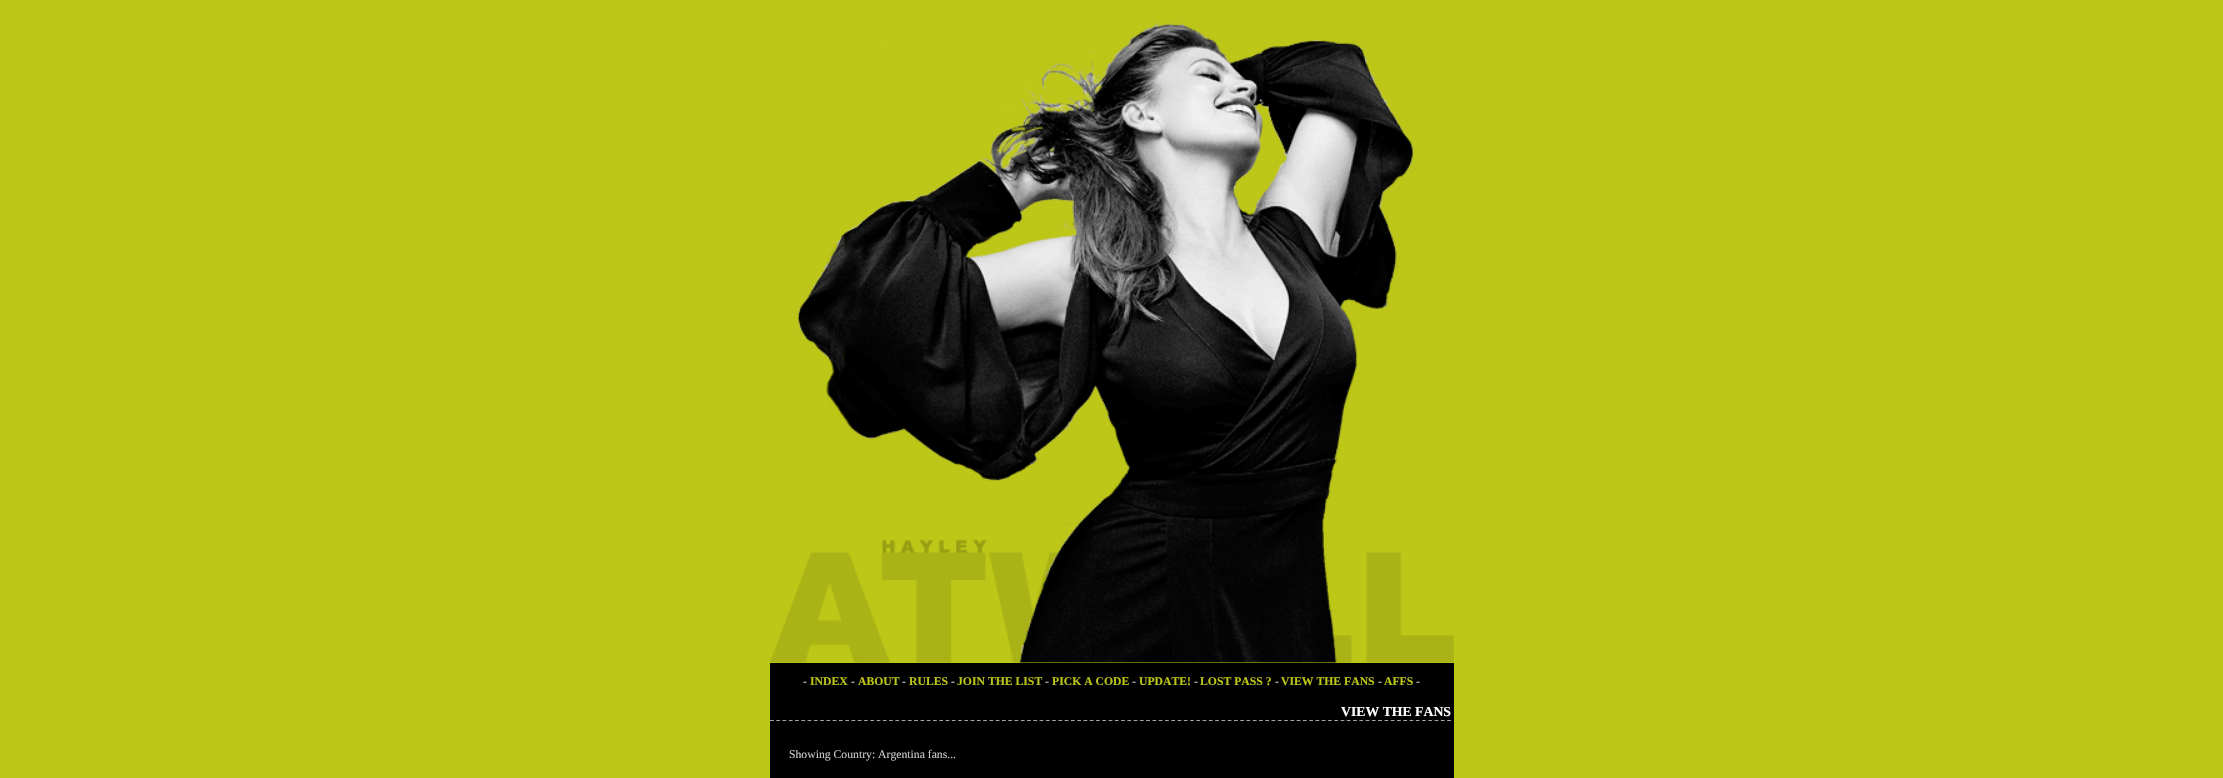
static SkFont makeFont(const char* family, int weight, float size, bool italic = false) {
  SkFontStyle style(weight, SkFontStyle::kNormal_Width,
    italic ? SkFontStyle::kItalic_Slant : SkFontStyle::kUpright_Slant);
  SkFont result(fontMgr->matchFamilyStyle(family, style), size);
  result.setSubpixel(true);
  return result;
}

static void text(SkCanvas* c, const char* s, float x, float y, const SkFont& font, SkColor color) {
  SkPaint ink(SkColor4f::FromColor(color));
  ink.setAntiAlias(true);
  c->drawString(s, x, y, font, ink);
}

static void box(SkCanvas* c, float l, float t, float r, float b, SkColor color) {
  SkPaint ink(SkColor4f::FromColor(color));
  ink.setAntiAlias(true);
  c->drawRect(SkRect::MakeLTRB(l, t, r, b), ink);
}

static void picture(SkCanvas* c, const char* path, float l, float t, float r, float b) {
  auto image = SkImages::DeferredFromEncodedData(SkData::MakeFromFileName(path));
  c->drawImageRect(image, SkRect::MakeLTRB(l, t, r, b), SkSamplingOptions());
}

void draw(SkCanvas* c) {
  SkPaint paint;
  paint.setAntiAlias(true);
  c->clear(0xffbdc718);
  picture(c, "img_01.png", 770, 22, 1454, 663);
  box(c, 770, 663, 1454, 778, 0xff000000);
  SkFont face1 = makeFont("Liberation Serif", 400, 11.7f);
  text(c, "-", 803, 685, face1, 0xffcccccc);
  SkFont face2 = makeFont("Liberation Serif", 700, 11.7f);
  text(c, "INDEX", 810, 685, face2, 0xffbdc718);
  text(c, "-", 851, 685, face1, 0xffcccccc);
  text(c, "ABOUT", 858, 685, face2, 0xffbdc718);
  text(c, "-", 902, 685, face1, 0xffcccccc);
  text(c, "RULES", 909, 685, face2, 0xffbdc718);
  text(c, "-", 951, 685, face1, 0xffcccccc);
  text(c, "JOIN THE LIST", 957, 685, face2, 0xffbdc718);
  text(c, "-", 1045, 685, face1, 0xffcccccc);
  text(c, "PICK A CODE", 1052, 685, face2, 0xffbdc718);
  text(c, "-", 1132, 685, face1, 0xffcccccc);
  text(c, "UPDATE!", 1139, 685, face2, 0xffbdc718);
  text(c, "-", 1194, 685, face1, 0xffcccccc);
  text(c, "LOST PASS ?", 1200, 685, face2, 0xffbdc718);
  text(c, "-", 1275, 685, face1, 0xffcccccc);
  text(c, "VIEW THE FANS", 1281, 685, face2, 0xffbdc718);
  text(c, "-", 1378, 685, face1, 0xffcccccc);
  text(c, "AFFS", 1384, 685, face2, 0xffbdc718);
  text(c, "-", 1416, 685, face1, 0xffcccccc);
  paint.setStyle(SkPaint::kStroke_Style);
  paint.setStrokeWidth(1.2f);
  paint.setColor(0xffa6a6a6);
  paint.setPathEffect(SkDashPathEffect::Make({{3.75f, 2.52f}}, 0));
  c->drawPath(SkPathBuilder().moveTo(770, 720.5f).lineTo(1451, 720.5f).detach(), paint);
  paint.setPathEffect(nullptr);
  SkFont face3 = makeFont("Liberation Serif", 700, 13.75f);
  text(c, "VIEW THE FANS", 1341, 716, face3, 0xffffffff);
  text(c, "Showing Country: Argentina fans...", 789, 758, face1, 0xffcccccc);
}
